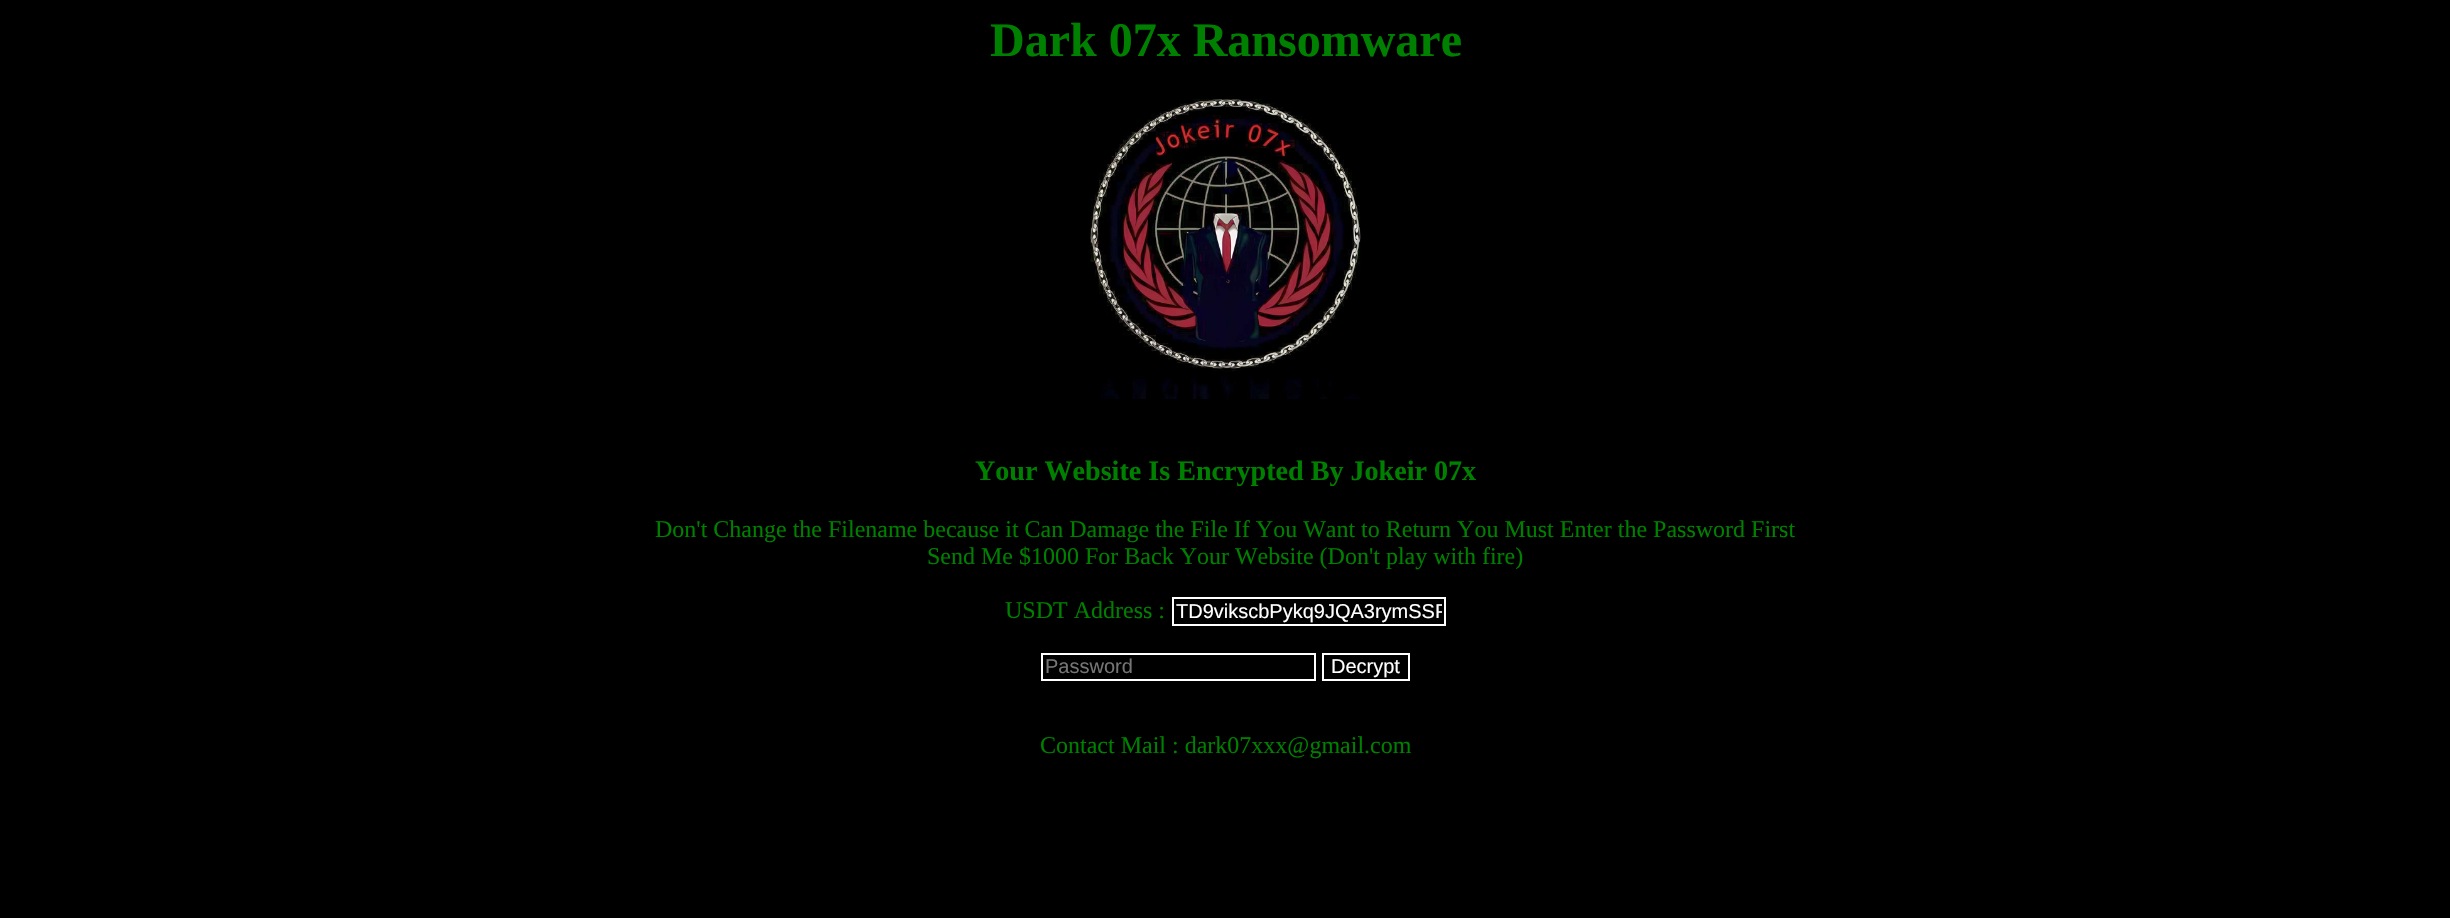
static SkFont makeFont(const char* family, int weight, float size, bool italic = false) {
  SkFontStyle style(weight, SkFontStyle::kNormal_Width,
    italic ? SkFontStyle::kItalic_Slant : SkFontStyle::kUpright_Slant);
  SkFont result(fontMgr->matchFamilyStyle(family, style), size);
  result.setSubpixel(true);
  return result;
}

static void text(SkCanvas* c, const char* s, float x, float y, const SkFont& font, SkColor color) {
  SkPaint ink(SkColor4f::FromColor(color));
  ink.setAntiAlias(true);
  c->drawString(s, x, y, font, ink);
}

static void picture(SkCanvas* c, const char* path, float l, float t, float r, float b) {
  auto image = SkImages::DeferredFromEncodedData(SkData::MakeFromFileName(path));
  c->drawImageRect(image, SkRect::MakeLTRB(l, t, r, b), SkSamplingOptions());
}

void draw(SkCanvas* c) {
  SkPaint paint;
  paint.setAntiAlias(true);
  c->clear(0xff000000);
  SkFont face1 = makeFont("Liberation Serif", 700, 48);
  text(c, "Dark 07x Ransomware", 990, 56, face1, 0xff008000);
  picture(c, "img_01.png", 1090, 99, 1361, 399);
  SkFont face2 = makeFont("Liberation Serif", 700, 28.1f);
  text(c, "Your Website Is Encrypted By Jokeir 07x", 975, 480, face2, 0xff008000);
  SkFont face3 = makeFont("Liberation Serif", 400, 24);
  text(c, "Don't Change the Filename because it Can Damage the File If You Want to Return You Must Enter the Password First", 655, 537, face3, 0xff008000);
  text(c, "Send Me $1000 For Back Your Website (Don't play with fire)", 927, 564, face3, 0xff008000);
  text(c, "USDT Address :", 1005, 618, face3, 0xff008000);
  paint.setStyle(SkPaint::kStroke_Style);
  paint.setStrokeWidth(2);
  paint.setColor(0xffffffff);
  c->drawRect(SkRect::MakeLTRB(1173, 598, 1445, 625), paint);
  c->save();
  c->clipRect(SkRect::MakeLTRB(1176, 600, 1442, 623));
  SkFont face4 = makeFont("Liberation Sans", 400, 20);
  text(c, "TD9vikscbPykq9JQA3rymSSP", 1176, 618, face4, 0xffffffff);
  c->restore();
  c->drawRect(SkRect::MakeLTRB(1042, 654, 1315, 680), paint);
  text(c, "Password", 1045, 673, face4, 0xff757575);
  c->drawRect(SkRect::MakeLTRB(1323, 654, 1409, 680), paint);
  text(c, "Decrypt", 1331, 673, face4, 0xffffffff);
  text(c, "Contact Mail : dark07xxx@gmail.com", 1040, 753, face3, 0xff008000);
}
